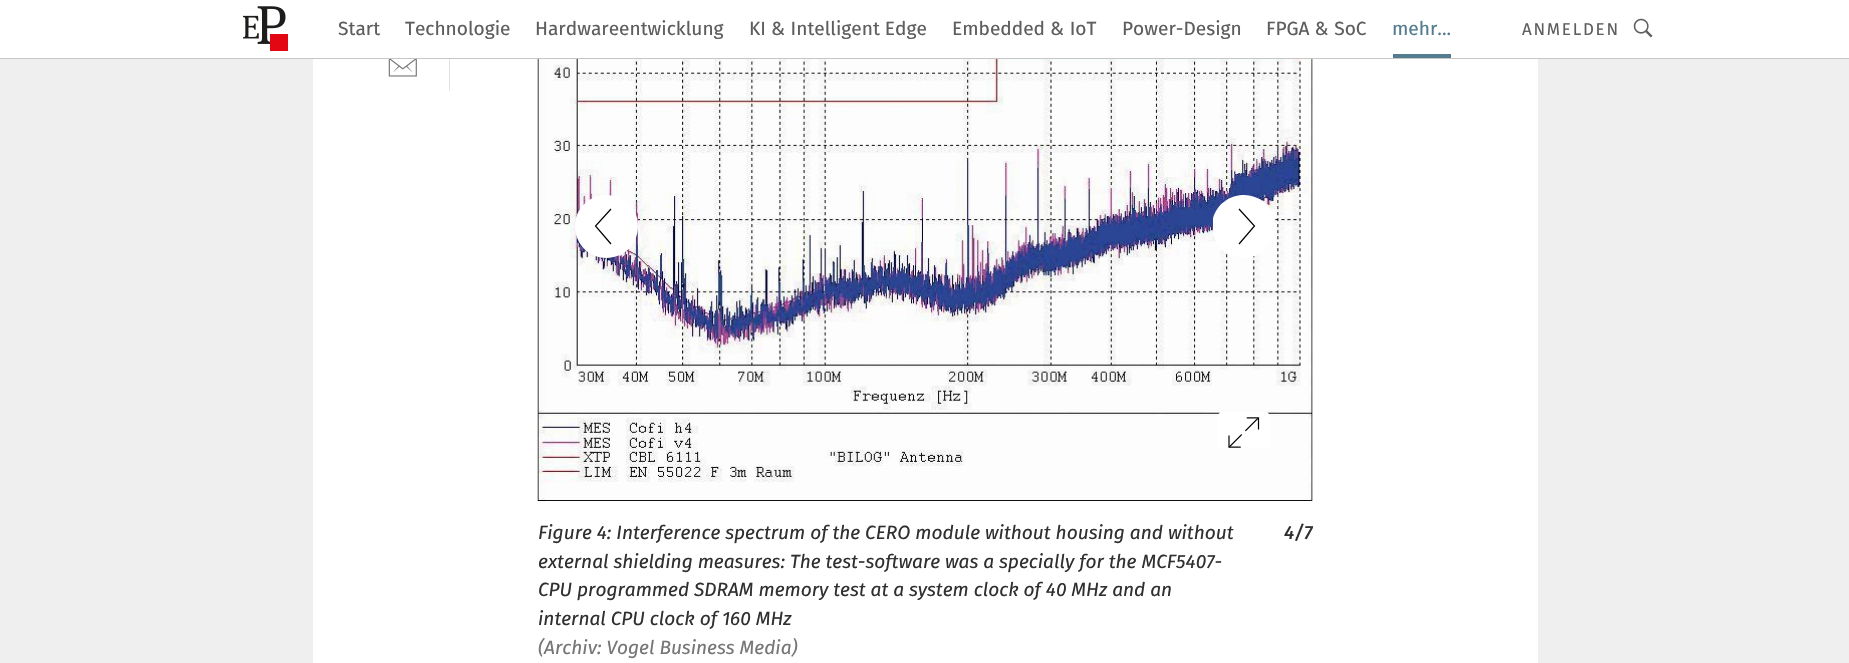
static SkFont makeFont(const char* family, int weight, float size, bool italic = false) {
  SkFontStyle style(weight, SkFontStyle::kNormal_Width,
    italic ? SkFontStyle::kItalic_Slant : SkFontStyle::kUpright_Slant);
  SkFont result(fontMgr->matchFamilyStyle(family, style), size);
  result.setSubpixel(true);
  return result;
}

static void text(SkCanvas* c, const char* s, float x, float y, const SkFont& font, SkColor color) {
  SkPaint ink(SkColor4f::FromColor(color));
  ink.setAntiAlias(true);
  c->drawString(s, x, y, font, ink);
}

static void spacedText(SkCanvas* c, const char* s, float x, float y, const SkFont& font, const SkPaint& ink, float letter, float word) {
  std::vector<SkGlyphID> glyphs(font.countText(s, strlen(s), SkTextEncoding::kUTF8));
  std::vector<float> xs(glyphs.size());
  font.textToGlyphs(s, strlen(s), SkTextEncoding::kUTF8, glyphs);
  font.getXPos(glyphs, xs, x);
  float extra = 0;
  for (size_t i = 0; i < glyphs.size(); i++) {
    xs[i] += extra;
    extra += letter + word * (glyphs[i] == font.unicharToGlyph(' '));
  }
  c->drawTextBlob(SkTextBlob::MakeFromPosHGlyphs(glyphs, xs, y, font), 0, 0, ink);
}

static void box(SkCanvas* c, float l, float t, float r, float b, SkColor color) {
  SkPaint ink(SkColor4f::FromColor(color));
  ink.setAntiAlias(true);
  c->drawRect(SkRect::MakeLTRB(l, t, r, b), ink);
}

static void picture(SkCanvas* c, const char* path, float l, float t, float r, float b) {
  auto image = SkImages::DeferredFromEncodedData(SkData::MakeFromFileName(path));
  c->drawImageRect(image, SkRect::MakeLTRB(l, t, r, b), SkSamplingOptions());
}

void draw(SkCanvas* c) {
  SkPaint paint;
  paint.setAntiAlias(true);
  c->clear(0xffefefef);
  box(c, 313, 59, 1538, 663, 0xffffffff);
  box(c, 0, 0, 1849, 58, 0xffffffff);
  box(c, 0, 58, 1849, 59, 0xffc6c6c6);
  picture(c, "img_01.png", 243, 6, 288, 51);
  SkFont face1 = makeFont("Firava", 400, 19.1f);
  text(c, "Start", 338, 35, face1, 0xff5e5e5e);
  text(c, "Technologie", 405, 35, face1, 0xff5e5e5e);
  text(c, "Hardwareentwicklung", 535, 35, face1, 0xff5e5e5e);
  text(c, "KI & Intelligent Edge", 749, 35, face1, 0xff5e5e5e);
  text(c, "Embedded & IoT", 952, 35, face1, 0xff5e5e5e);
  text(c, "Power-Design", 1122, 35, face1, 0xff5e5e5e);
  text(c, "FPGA & SoC", 1266, 35, face1, 0xff5e5e5e);
  box(c, 1393, 54, 1451, 58, 0xff547c8e);
  text(c, "mehr...", 1392, 35, face1, 0xff547c8e);
  SkFont face2 = makeFont("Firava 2", 400, 17);
  paint.setColor(0xff5e5e5e);
  spacedText(c, "ANMELDEN", 1522, 35, face2, paint, 1.75f, 0);
  picture(c, "img_02.png", 1633, 18, 1653, 38);
  box(c, 449, 59, 450, 91, 0xffe2e2e2);
  picture(c, "img_03.png", 388, 59, 417, 77);
  box(c, 1312, 59, 1313, 501, 0xffefefef);
  picture(c, "img_04.png", 537, 59, 1313, 501);
  paint.setColor(0xffffffff);
  c->drawPath(SkPathBuilder().moveTo(606, 258).cubicTo(624, 258, 638, 244, 638, 226).cubicTo(638, 209, 624, 195, 606, 195).cubicTo(589, 195, 575, 209, 575, 226).cubicTo(575, 244, 589, 258, 606, 258).detach(), paint);
  paint.setStyle(SkPaint::kStroke_Style);
  paint.setStrokeWidth(1.2f);
  paint.setColor(0xff000000);
  c->drawPath(SkPathBuilder().moveTo(611, 209).lineTo(595.5f, 226).lineTo(611, 244).detach(), paint);
  c->save();
  c->clipRect(SkRect::MakeLTRB(1213, 195, 1275, 258));
  paint.setStyle(SkPaint::kFill_Style);
  paint.setColor(0xffffffff);
  c->drawPath(SkPathBuilder().moveTo(1244, 195).cubicTo(1226, 195, 1212, 209, 1212, 226).cubicTo(1212, 244, 1226, 258, 1244, 258).cubicTo(1261, 258, 1275, 244, 1275, 226).cubicTo(1275, 209, 1261, 195, 1244, 195).detach(), paint);
  c->restore();
  paint.setStyle(SkPaint::kStroke_Style);
  paint.setColor(0xff000000);
  c->drawPath(SkPathBuilder().moveTo(1239, 244).lineTo(1254.5f, 226).lineTo(1239, 209).detach(), paint);
  picture(c, "img_05.png", 1218, 412, 1270, 448);
  SkFont face3 = makeFont("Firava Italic", 400, 19.1f, true);
  text(c, "Figure 4: Interference spectrum of the CERO module without housing and without", 538, 539, face3, 0xff303030);
  text(c, "external shielding measures: The test-software was a specially for the MCF5407-", 538, 568, face3, 0xff303030);
  text(c, "CPU programmed SDRAM memory test at a system clock of 40 MHz and an", 538, 596, face3, 0xff303030);
  text(c, "internal CPU clock of 160 MHz", 538, 625, face3, 0xff303030);
  text(c, "(Archiv: Vogel Business Media)", 538, 654, face3, 0xff767676);
  SkFont face4 = makeFont("Firava Italic", 500, 19.1f, true);
  text(c, "4/7", 1284, 539, face4, 0xff303030);
}
